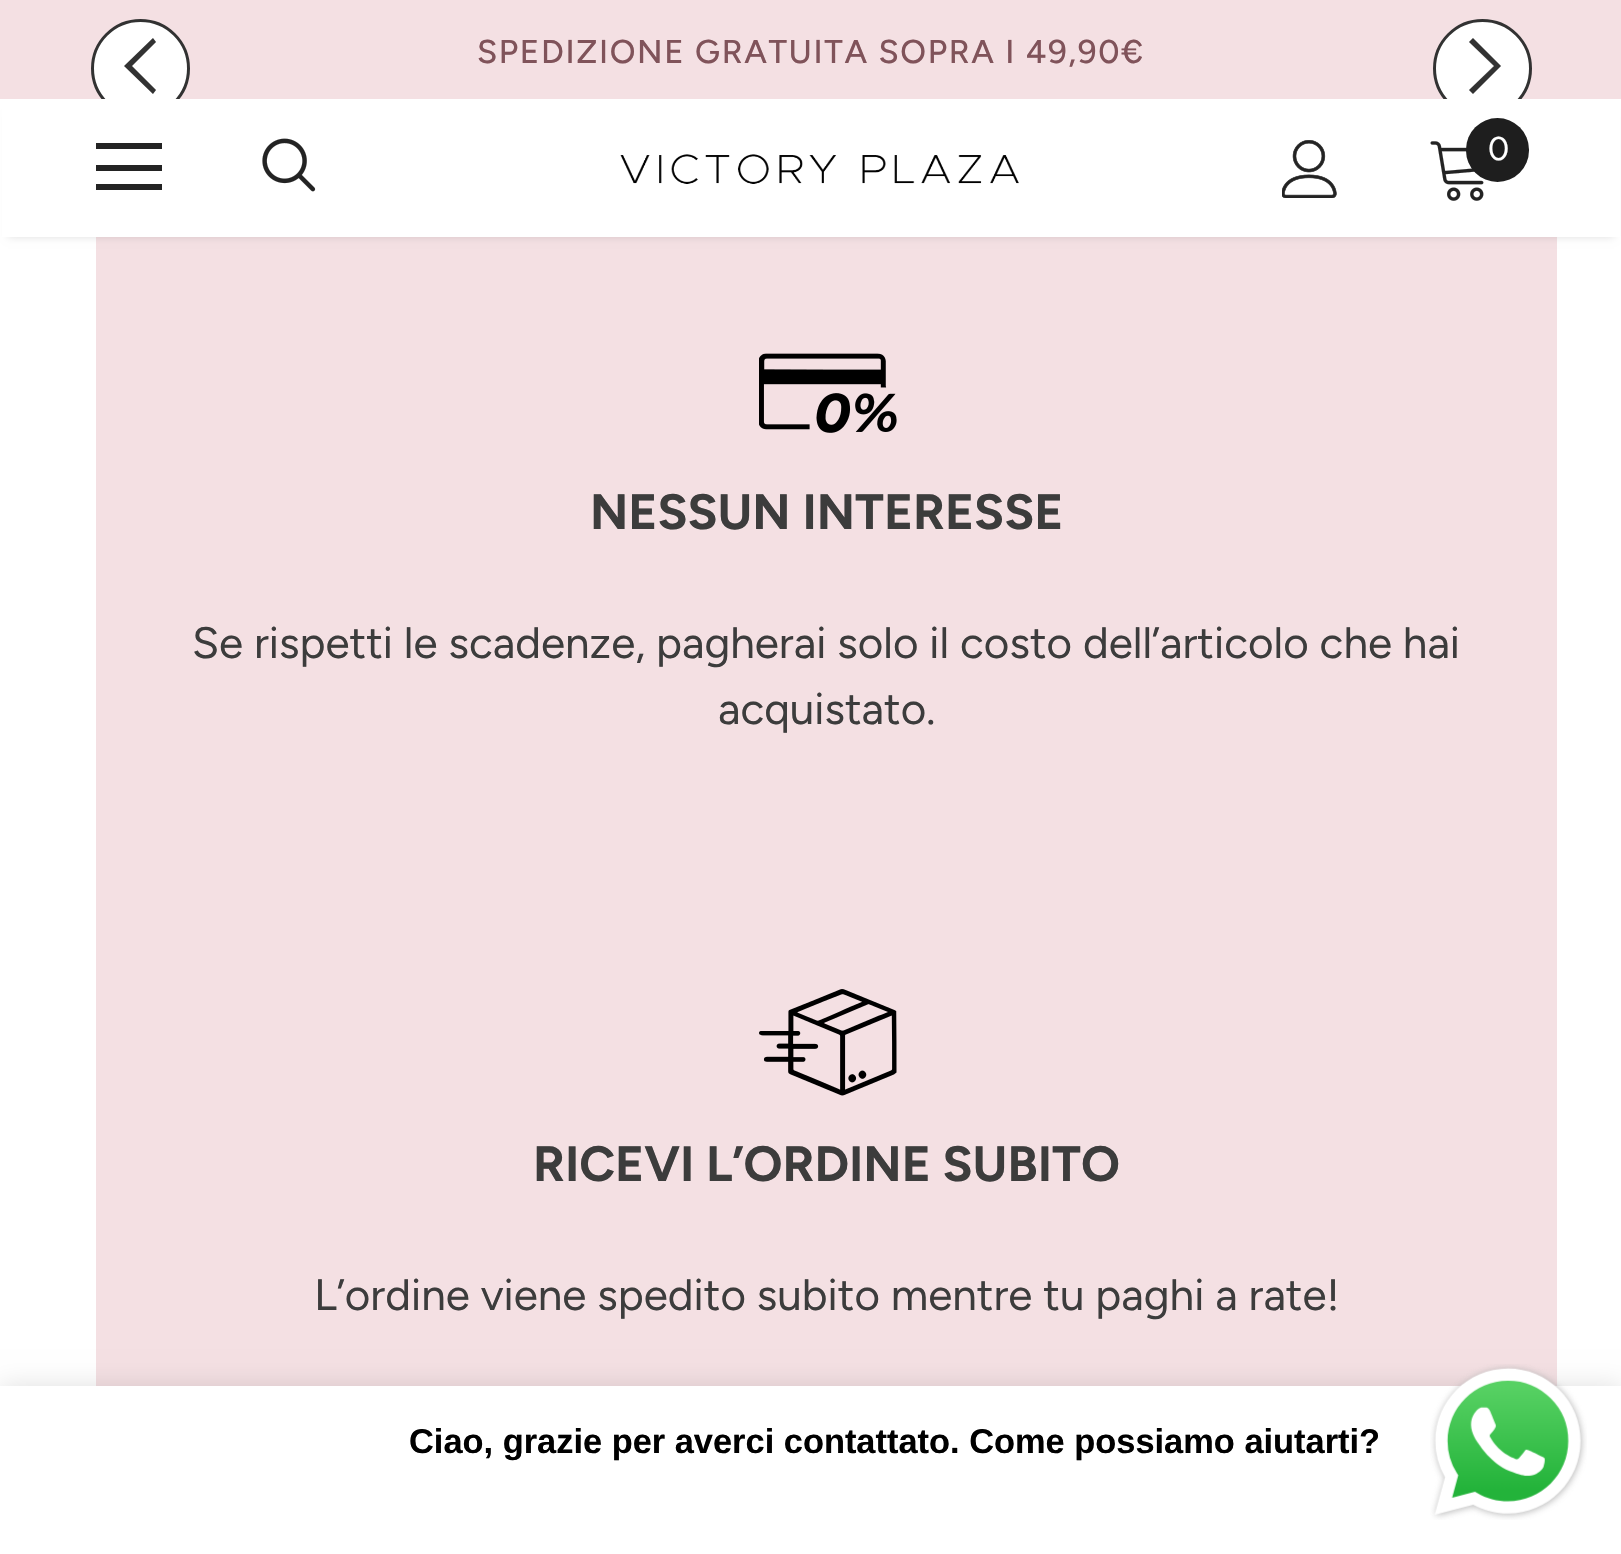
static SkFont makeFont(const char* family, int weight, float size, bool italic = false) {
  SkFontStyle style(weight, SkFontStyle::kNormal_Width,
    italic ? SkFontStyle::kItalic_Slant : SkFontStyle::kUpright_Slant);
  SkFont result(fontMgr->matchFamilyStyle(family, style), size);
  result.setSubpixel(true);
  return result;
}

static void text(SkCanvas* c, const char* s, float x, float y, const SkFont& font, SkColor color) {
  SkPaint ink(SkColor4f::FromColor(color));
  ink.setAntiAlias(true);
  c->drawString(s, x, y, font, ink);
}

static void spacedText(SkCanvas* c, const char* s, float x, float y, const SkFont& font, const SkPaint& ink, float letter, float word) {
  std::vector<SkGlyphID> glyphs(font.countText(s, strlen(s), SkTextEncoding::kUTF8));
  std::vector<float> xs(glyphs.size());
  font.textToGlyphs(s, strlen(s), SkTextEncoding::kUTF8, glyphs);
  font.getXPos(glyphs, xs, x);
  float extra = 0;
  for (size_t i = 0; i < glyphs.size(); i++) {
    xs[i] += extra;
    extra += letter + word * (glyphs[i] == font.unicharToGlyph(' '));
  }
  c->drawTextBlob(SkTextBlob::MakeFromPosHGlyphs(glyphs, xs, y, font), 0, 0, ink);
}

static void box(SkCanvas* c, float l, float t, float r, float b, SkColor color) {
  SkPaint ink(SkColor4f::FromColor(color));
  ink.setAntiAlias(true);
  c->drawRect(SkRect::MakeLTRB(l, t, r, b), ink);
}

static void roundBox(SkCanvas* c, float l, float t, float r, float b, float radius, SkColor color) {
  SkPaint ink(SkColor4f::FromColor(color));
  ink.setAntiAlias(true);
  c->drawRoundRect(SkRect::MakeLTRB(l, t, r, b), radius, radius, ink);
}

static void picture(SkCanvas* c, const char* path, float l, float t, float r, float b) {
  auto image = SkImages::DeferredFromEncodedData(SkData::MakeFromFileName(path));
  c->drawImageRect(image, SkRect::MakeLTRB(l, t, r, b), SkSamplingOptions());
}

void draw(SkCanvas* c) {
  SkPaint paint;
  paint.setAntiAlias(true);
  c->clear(0xffffffff);
  box(c, 0, 0, 1621, 99, 0xfff4e0e3);
  paint.setColor(0xffffffff);
  c->drawCircle(140.5f, 68.5f, 48, paint);
  paint.setStyle(SkPaint::kStroke_Style);
  paint.setStrokeWidth(3);
  paint.setColor(0xff323232);
  c->drawCircle(140.5f, 68.5f, 48, paint);
  paint.setStyle(SkPaint::kFill_Style);
  c->drawPath(SkPathBuilder().moveTo(156, 42).lineTo(153, 38).lineTo(124, 66).lineTo(153, 94).lineTo(156, 90).lineTo(132, 66).close().detach(), paint);
  paint.setStyle(SkPaint::kStroke_Style);
  paint.setStrokeWidth(0.1f);
  c->drawPath(SkPathBuilder().moveTo(156, 42).lineTo(152.5f, 38.5f).lineTo(124.5f, 66).lineTo(152.5f, 93.5f).lineTo(156, 90).lineTo(131.5f, 66).close().detach(), paint);
  SkFont face1 = makeFont("Figtree", 500, 33);
  paint.setStyle(SkPaint::kFill_Style);
  paint.setColor(0xff80535a);
  spacedText(c, "SPEDIZIONE GRATUITA SOPRA I 49,90€", 477, 63, face1, paint, 1.65f, 0);
  paint.setColor(0xffffffff);
  c->drawCircle(1482.5f, 68.5f, 48, paint);
  paint.setStyle(SkPaint::kStroke_Style);
  paint.setStrokeWidth(3);
  paint.setColor(0xff323232);
  c->drawCircle(1482.5f, 68.5f, 48, paint);
  paint.setStyle(SkPaint::kFill_Style);
  c->drawPath(SkPathBuilder().moveTo(1473, 38).lineTo(1469, 42).lineTo(1494, 66).lineTo(1469, 90).lineTo(1473, 94).lineTo(1501, 66).close().detach(), paint);
  paint.setStyle(SkPaint::kStroke_Style);
  paint.setStrokeWidth(0.1f);
  c->drawPath(SkPathBuilder().moveTo(1472.5f, 38.5f).lineTo(1469, 42).lineTo(1493.5f, 66).lineTo(1469, 90).lineTo(1472.5f, 93.5f).lineTo(1501, 66).close().detach(), paint);
  box(c, 96, 237, 1557, 1386, 0xfff4e0e3);
  paint.setStyle(SkPaint::kFill_Style);
  paint.setColor(0x1f000000);
  paint.setMaskFilter(SkMaskFilter::MakeBlur(kNormal_SkBlurStyle, 4));
  c->drawRect(SkRect::MakeLTRB(8, 116, 1614, 237), paint);
  paint.setMaskFilter(nullptr);
  box(c, 2, 99, 1620, 237, 0xffffffff);
  box(c, 96, 143, 162, 149, 0xff232323);
  box(c, 96, 165, 162, 171, 0xff232323);
  box(c, 96, 184, 162, 190, 0xff232323);
  picture(c, "img_01.png", 262, 138, 316, 192);
  picture(c, "img_02.png", 620, 154, 1019, 184);
  picture(c, "img_03.png", 1282, 140, 1337, 198);
  picture(c, "img_04.png", 1430, 141, 1484, 201);
  roundBox(c, 1466, 118, 1529, 182, 31.5f, 0xff1e1e1e);
  SkFont face2 = makeFont("Figtree", 400, 33);
  text(c, "0", 1488, 160, face2, 0xffffffff);
  picture(c, "img_05.png", 759, 353, 897, 433);
  SkFont face3 = makeFont("Figtree", 700, 49.5f);
  text(c, "NESSUN INTERESSE", 590, 529, face3, 0xff3c3c3c);
  SkFont face4 = makeFont("Figtree", 400, 44);
  text(c, "Se rispetti le scadenze, pagherai solo il costo dell’articolo che hai", 192, 658, face4, 0xff3c3c3c);
  text(c, "acquistato.", 718, 724, face4, 0xff3c3c3c);
  picture(c, "img_06.png", 759, 989, 897, 1096);
  text(c, "RICEVI L’ORDINE SUBITO", 533, 1181, face3, 0xff3c3c3c);
  text(c, "L’ordine viene spedito subito mentre tu paghi a rate!", 314, 1310, face4, 0xff3c3c3c);
  paint.setMaskFilter(SkMaskFilter::MakeBlur(kNormal_SkBlurStyle, 12.5f));
  c->drawRect(SkRect::MakeLTRB(0, 1386, 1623, 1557), paint);
  paint.setMaskFilter(nullptr);
  box(c, 0, 1386, 1621, 1554, 0xffffffff);
  SkFont face5 = makeFont("Liberation Sans", 700, 34.4f);
  text(c, "Ciao, grazie per averci contattato. Come possiamo aiutarti?", 409, 1453, face5, 0xff000000);
  picture(c, "img_07.png", 1430, 1364, 1587, 1520);
}
